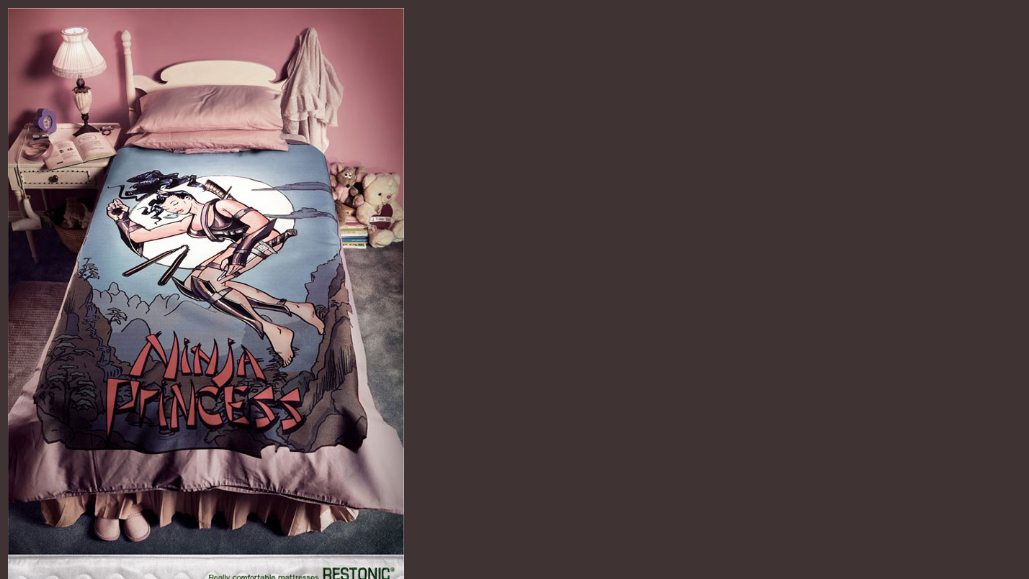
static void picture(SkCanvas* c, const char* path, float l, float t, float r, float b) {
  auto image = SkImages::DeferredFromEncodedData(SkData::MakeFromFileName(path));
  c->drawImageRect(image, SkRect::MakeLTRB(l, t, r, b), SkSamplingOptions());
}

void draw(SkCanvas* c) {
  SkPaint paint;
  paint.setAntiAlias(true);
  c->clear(0xff403333);
  picture(c, "img_01.png", 8, 8, 404, 579);
}
